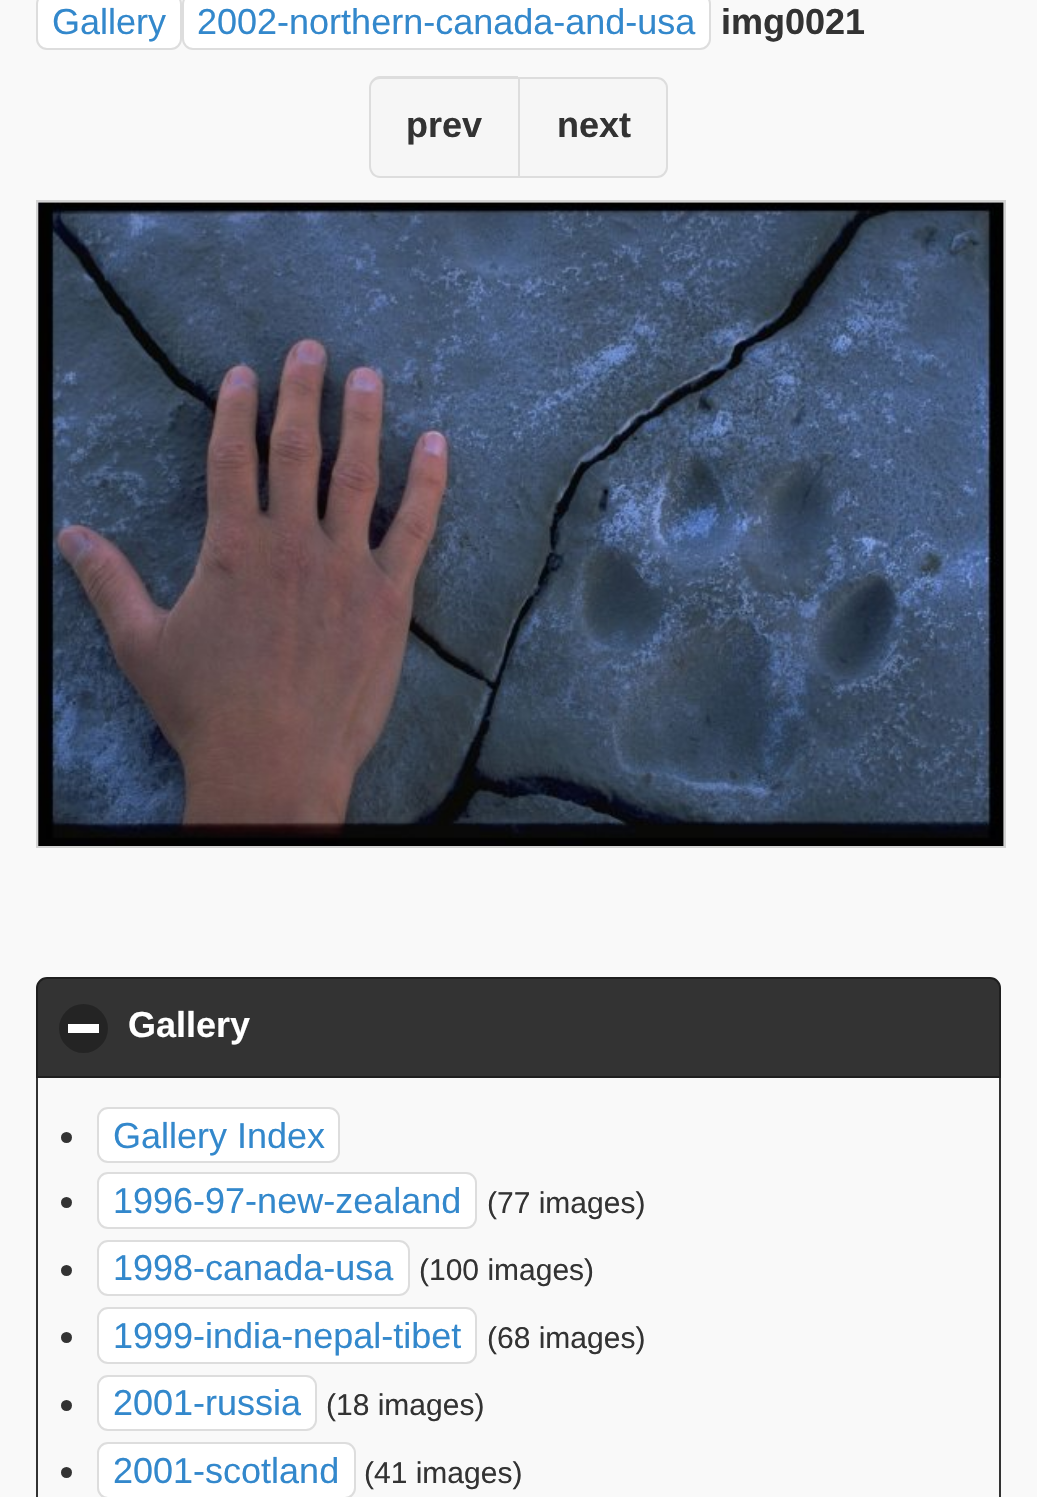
static SkFont makeFont(const char* family, int weight, float size, bool italic = false) {
  SkFontStyle style(weight, SkFontStyle::kNormal_Width,
    italic ? SkFontStyle::kItalic_Slant : SkFontStyle::kUpright_Slant);
  SkFont result(fontMgr->matchFamilyStyle(family, style), size);
  result.setSubpixel(true);
  return result;
}

static void text(SkCanvas* c, const char* s, float x, float y, const SkFont& font, SkColor color) {
  SkPaint ink(SkColor4f::FromColor(color));
  ink.setAntiAlias(true);
  c->drawString(s, x, y, font, ink);
}

static void box(SkCanvas* c, float l, float t, float r, float b, SkColor color) {
  SkPaint ink(SkColor4f::FromColor(color));
  ink.setAntiAlias(true);
  c->drawRect(SkRect::MakeLTRB(l, t, r, b), ink);
}

static void picture(SkCanvas* c, const char* path, float l, float t, float r, float b) {
  auto image = SkImages::DeferredFromEncodedData(SkData::MakeFromFileName(path));
  c->drawImageRect(image, SkRect::MakeLTRB(l, t, r, b), SkSamplingOptions());
}

void draw(SkCanvas* c) {
  SkPaint paint;
  paint.setAntiAlias(true);
  c->clear(0xfff9f9f9);
  paint.setColor(0xffffffff);
  c->drawRoundRect(SkRect::MakeLTRB(37, -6, 181, 49), 10, 10, paint);
  paint.setStyle(SkPaint::kStroke_Style);
  paint.setStrokeWidth(2);
  paint.setColor(0xffdddddd);
  c->drawRoundRect(SkRect::MakeLTRB(37, -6, 181, 49), 10, 10, paint);
  SkFont face1 = makeFont("Liberation Sans", 400, 36);
  text(c, "Gallery", 52, 34, face1, 0xff3388cc);
  paint.setStyle(SkPaint::kFill_Style);
  paint.setColor(0xffffffff);
  c->drawRoundRect(SkRect::MakeLTRB(183, -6, 710, 49), 10, 10, paint);
  paint.setStyle(SkPaint::kStroke_Style);
  paint.setColor(0xffdddddd);
  c->drawRoundRect(SkRect::MakeLTRB(183, -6, 710, 49), 10, 10, paint);
  text(c, "2002-northern-canada-and-usa", 197, 34, face1, 0xff3388cc);
  SkFont face2 = makeFont("Liberation Sans", 700, 36);
  text(c, "img0021", 721, 34, face2, 0xff333333);
  paint.setStyle(SkPaint::kFill_Style);
  paint.setColor(0xfff6f6f6);
  c->drawPath(SkPathBuilder().moveTo(380, 79).lineTo(518, 79).lineTo(518, 176).lineTo(380, 176).cubicTo(375, 176, 371, 172, 371, 167).lineTo(371, 88).cubicTo(371, 83, 375, 79, 380, 79).close().detach(), paint);
  paint.setColor(0xffdddddd);
  c->drawPath(SkPathBuilder(SkPathFillType::kEvenOdd).moveTo(380, 76).lineTo(518, 76).lineTo(518, 178).lineTo(380, 178).cubicTo(374, 178, 369, 173, 369, 166).lineTo(369, 88).cubicTo(369, 82, 374, 76, 380, 76).close().moveTo(380, 79).lineTo(518, 79).lineTo(518, 176).lineTo(380, 176).cubicTo(375, 176, 371, 171, 371, 166).lineTo(371, 88).cubicTo(371, 83, 375, 79, 380, 79).close().detach(), paint);
  text(c, "prev", 406, 137, face2, 0xff333333);
  paint.setColor(0xfff6f6f6);
  c->drawPath(SkPathBuilder().moveTo(519, 78).lineTo(657, 78).cubicTo(662.5f, 78, 667, 82.5f, 667, 88).lineTo(667, 167).cubicTo(667, 172.5f, 662.5f, 177, 657, 177).lineTo(519, 177).close().detach(), paint);
  paint.setStyle(SkPaint::kStroke_Style);
  paint.setColor(0xffdddddd);
  c->drawPath(SkPathBuilder().moveTo(519, 78).lineTo(657, 78).cubicTo(662.5f, 78, 667, 82.5f, 667, 88).lineTo(667, 167).cubicTo(667, 172.5f, 662.5f, 177, 657, 177).lineTo(519, 177).close().detach(), paint);
  text(c, "next", 557, 137, face2, 0xff333333);
  paint.setColor(0xffd3d3d3);
  c->drawRect(SkRect::MakeLTRB(37, 201, 1005, 847), paint);
  picture(c, "img_01.png", 38, 202, 1004, 846);
  paint.setStyle(SkPaint::kFill_Style);
  paint.setColor(0xff333333);
  c->drawPath(SkPathBuilder().moveTo(47, 978).lineTo(990, 978).cubicTo(995.5f, 978, 1000, 982.5f, 1000, 988).lineTo(1000, 1077).lineTo(37, 1077).lineTo(37, 988).cubicTo(37, 982.5f, 41.5f, 978, 47, 978).close().detach(), paint);
  paint.setStyle(SkPaint::kStroke_Style);
  paint.setColor(0xff1f1f1f);
  c->drawPath(SkPathBuilder().moveTo(47, 978).lineTo(990, 978).cubicTo(995.5f, 978, 1000, 982.5f, 1000, 988).lineTo(1000, 1077).lineTo(37, 1077).lineTo(37, 988).cubicTo(37, 982.5f, 41.5f, 978, 47, 978).close().detach(), paint);
  paint.setStyle(SkPaint::kFill_Style);
  paint.setColor(0xff242424);
  c->drawCircle(83.5f, 1028.5f, 24.5f, paint);
  box(c, 68, 1024, 99, 1033, 0xffffffff);
  text(c, "Gallery", 128, 1037, face2, 0xffffffff);
  paint.setColor(0xff333333);
  c->drawPath(SkPathBuilder(SkPathFillType::kEvenOdd).moveTo(36, 1078).lineTo(1001, 1078).lineTo(1001, 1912).cubicTo(1001, 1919, 996, 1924, 990, 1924).lineTo(47, 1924).cubicTo(41, 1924, 36, 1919, 36, 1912).close().moveTo(38, 1078).lineTo(999, 1078).lineTo(999, 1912).cubicTo(999, 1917, 995, 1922, 990, 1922).lineTo(47, 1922).cubicTo(42, 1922, 38, 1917, 38, 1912).close().detach(), paint);
  c->drawCircle(66.5f, 1137.5f, 5.5f, paint);
  paint.setColor(0xffffffff);
  c->drawRoundRect(SkRect::MakeLTRB(98, 1108, 339, 1162), 10, 10, paint);
  paint.setStyle(SkPaint::kStroke_Style);
  paint.setColor(0xffdddddd);
  c->drawRoundRect(SkRect::MakeLTRB(98, 1108, 339, 1162), 10, 10, paint);
  text(c, "Gallery Index", 113, 1148, face1, 0xff3388cc);
  paint.setStyle(SkPaint::kFill_Style);
  paint.setColor(0xff333333);
  c->drawCircle(66.5f, 1202.5f, 5.5f, paint);
  paint.setColor(0xffffffff);
  c->drawRoundRect(SkRect::MakeLTRB(98, 1173, 476, 1228), 10, 10, paint);
  paint.setStyle(SkPaint::kStroke_Style);
  paint.setColor(0xffdddddd);
  c->drawRoundRect(SkRect::MakeLTRB(98, 1173, 476, 1228), 10, 10, paint);
  text(c, "1996-97-new-zealand", 113, 1213, face1, 0xff3388cc);
  SkFont face3 = makeFont("Liberation Sans", 400, 30);
  text(c, "(77 images)", 487, 1213, face3, 0xff333333);
  paint.setStyle(SkPaint::kFill_Style);
  paint.setColor(0xff333333);
  c->drawCircle(66.5f, 1270.5f, 5.5f, paint);
  paint.setColor(0xffffffff);
  c->drawRoundRect(SkRect::MakeLTRB(98, 1241, 409, 1295), 10, 10, paint);
  paint.setStyle(SkPaint::kStroke_Style);
  paint.setColor(0xffdddddd);
  c->drawRoundRect(SkRect::MakeLTRB(98, 1241, 409, 1295), 10, 10, paint);
  text(c, "1998-canada-usa", 113, 1280, face1, 0xff3388cc);
  text(c, "(100 images)", 419, 1280, face3, 0xff333333);
  paint.setStyle(SkPaint::kFill_Style);
  paint.setColor(0xff333333);
  c->drawCircle(66.5f, 1337.5f, 5.5f, paint);
  paint.setColor(0xffffffff);
  c->drawRoundRect(SkRect::MakeLTRB(98, 1308, 476, 1363), 10, 10, paint);
  paint.setStyle(SkPaint::kStroke_Style);
  paint.setColor(0xffdddddd);
  c->drawRoundRect(SkRect::MakeLTRB(98, 1308, 476, 1363), 10, 10, paint);
  text(c, "1999-india-nepal-tibet", 113, 1348, face1, 0xff3388cc);
  text(c, "(68 images)", 487, 1348, face3, 0xff333333);
  paint.setStyle(SkPaint::kFill_Style);
  paint.setColor(0xff333333);
  c->drawCircle(66.5f, 1405.5f, 5.5f, paint);
  paint.setColor(0xffffffff);
  c->drawRoundRect(SkRect::MakeLTRB(98, 1376, 316, 1430), 10, 10, paint);
  paint.setStyle(SkPaint::kStroke_Style);
  paint.setColor(0xffdddddd);
  c->drawRoundRect(SkRect::MakeLTRB(98, 1376, 316, 1430), 10, 10, paint);
  text(c, "2001-russia", 113, 1415, face1, 0xff3388cc);
  text(c, "(18 images)", 326, 1415, face3, 0xff333333);
  paint.setStyle(SkPaint::kFill_Style);
  paint.setColor(0xff333333);
  c->drawCircle(66.5f, 1472.5f, 5.5f, paint);
  paint.setColor(0xffffffff);
  c->drawRoundRect(SkRect::MakeLTRB(98, 1443, 355, 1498), 10, 10, paint);
  paint.setStyle(SkPaint::kStroke_Style);
  paint.setColor(0xffdddddd);
  c->drawRoundRect(SkRect::MakeLTRB(98, 1443, 355, 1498), 10, 10, paint);
  text(c, "2001-scotland", 113, 1483, face1, 0xff3388cc);
  text(c, "(41 images)", 364, 1483, face3, 0xff333333);
}
